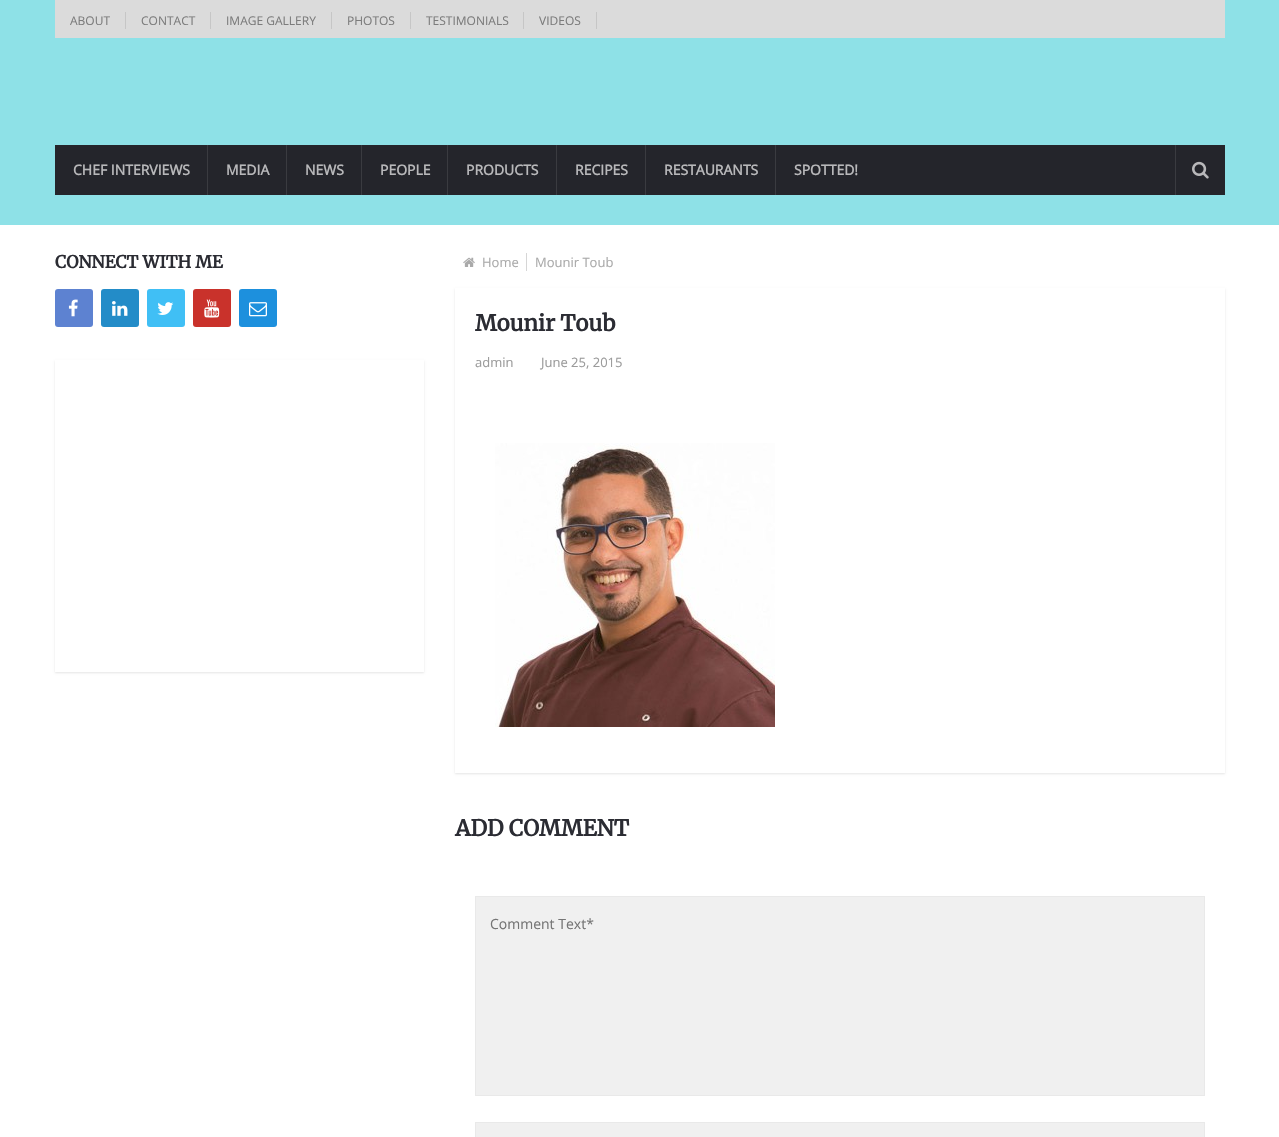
static SkFont makeFont(const char* family, int weight, float size, bool italic = false) {
  SkFontStyle style(weight, SkFontStyle::kNormal_Width,
    italic ? SkFontStyle::kItalic_Slant : SkFontStyle::kUpright_Slant);
  SkFont result(fontMgr->matchFamilyStyle(family, style), size);
  result.setSubpixel(true);
  return result;
}

static void text(SkCanvas* c, const char* s, float x, float y, const SkFont& font, SkColor color) {
  SkPaint ink(SkColor4f::FromColor(color));
  ink.setAntiAlias(true);
  c->drawString(s, x, y, font, ink);
}

static void box(SkCanvas* c, float l, float t, float r, float b, SkColor color) {
  SkPaint ink(SkColor4f::FromColor(color));
  ink.setAntiAlias(true);
  c->drawRect(SkRect::MakeLTRB(l, t, r, b), ink);
}

static void roundBox(SkCanvas* c, float l, float t, float r, float b, float radius, SkColor color) {
  SkPaint ink(SkColor4f::FromColor(color));
  ink.setAntiAlias(true);
  c->drawRoundRect(SkRect::MakeLTRB(l, t, r, b), radius, radius, ink);
}

static void picture(SkCanvas* c, const char* path, float l, float t, float r, float b) {
  auto image = SkImages::DeferredFromEncodedData(SkData::MakeFromFileName(path));
  c->drawImageRect(image, SkRect::MakeLTRB(l, t, r, b), SkSamplingOptions());
}

void draw(SkCanvas* c) {
  SkPaint paint;
  paint.setAntiAlias(true);
  c->clear(0xffffffff);
  box(c, 0, 0, 1279, 225, 0xff8ee1e7);
  box(c, 55, 0, 1225, 38, 0xffdbdbdb);
  box(c, 125, 12, 126, 29, 0xffc6c6c6);
  SkFont face1 = makeFont("Open Sans", 400, 12);
  text(c, "ABOUT", 70, 25, face1, 0xff7c7c7c);
  box(c, 210, 12, 211, 29, 0xffc6c6c6);
  text(c, "CONTACT", 141, 25, face1, 0xff7c7c7c);
  box(c, 331, 12, 332, 29, 0xffc6c6c6);
  text(c, "IMAGE GALLERY", 226, 25, face1, 0xff7c7c7c);
  box(c, 410, 12, 411, 29, 0xffc6c6c6);
  text(c, "PHOTOS", 347, 25, face1, 0xff7c7c7c);
  box(c, 523, 12, 524, 29, 0xffc6c6c6);
  text(c, "TESTIMONIALS", 426, 25, face1, 0xff7c7c7c);
  box(c, 596, 12, 597, 29, 0xffc6c6c6);
  text(c, "VIDEOS", 539, 25, face1, 0xff7c7c7c);
  box(c, 55, 145, 1225, 195, 0xff24252b);
  box(c, 207, 145, 208, 195, 0xff3a3b40);
  SkFont face2 = makeFont("Open Sans", 700, 14);
  text(c, "CHEF INTERVIEWS", 73, 175, face2, 0xffb8b8ba);
  box(c, 286, 145, 287, 195, 0xff3a3b40);
  text(c, "MEDIA", 226, 175, face2, 0xffb8b8ba);
  box(c, 361, 145, 362, 195, 0xff3a3b40);
  text(c, "NEWS", 305, 175, face2, 0xffb8b8ba);
  box(c, 447, 145, 448, 195, 0xff3a3b40);
  text(c, "PEOPLE", 380, 175, face2, 0xffb8b8ba);
  box(c, 556, 145, 557, 195, 0xff3a3b40);
  text(c, "PRODUCTS", 466, 175, face2, 0xffb8b8ba);
  box(c, 645, 145, 646, 195, 0xff3a3b40);
  text(c, "RECIPES", 575, 175, face2, 0xffb8b8ba);
  box(c, 775, 145, 776, 195, 0xff3a3b40);
  text(c, "RESTAURANTS", 664, 175, face2, 0xffb8b8ba);
  text(c, "SPOTTED!", 794, 175, face2, 0xffb8b8ba);
  box(c, 1175, 145, 1176, 195, 0xff3a3b40);
  picture(c, "img_01.png", 1192, 161, 1209, 179);
  SkFont face3 = makeFont("Merriweather", 700, 17);
  text(c, "CONNECT WITH ME", 55, 268, face3, 0xff2b2c33);
  roundBox(c, 55, 289, 93, 327, 3, 0xff5d82d1);
  picture(c, "img_02.png", 68, 299, 78, 317);
  roundBox(c, 101, 289, 139, 327, 3, 0xff238cc8);
  picture(c, "img_03.png", 112, 301, 128, 316);
  roundBox(c, 147, 289, 185, 327, 3, 0xff40bff5);
  picture(c, "img_04.png", 157, 302, 174, 315);
  roundBox(c, 193, 289, 231, 327, 3, 0xffc9322b);
  picture(c, "img_05.png", 204, 299, 220, 318);
  roundBox(c, 239, 289, 277, 327, 3, 0xff1d90dd);
  picture(c, "img_06.png", 249, 302, 267, 317);
  c->save();
  c->clipPath(SkPathBuilder(SkPathFillType::kEvenOdd).moveTo(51, 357).lineTo(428, 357).lineTo(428, 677).lineTo(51, 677).close().moveTo(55, 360).lineTo(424, 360).lineTo(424, 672).lineTo(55, 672).close().detach(), true);
  paint.setColor(0x1a000000);
  paint.setMaskFilter(SkMaskFilter::MakeBlur(kNormal_SkBlurStyle, 1));
  c->drawRect(SkRect::MakeLTRB(55, 361, 424, 673), paint);
  paint.setMaskFilter(nullptr);
  c->restore();
  picture(c, "img_07.png", 463, 257, 475, 267);
  SkFont face4 = makeFont("Open Sans", 400, 13);
  text(c, "Home", 482, 267, face4, 0xffaaaaaa);
  box(c, 526, 253, 527, 271, 0xffd6d6d6);
  text(c, "Mounir Toub", 535, 267, face4, 0xffaaaaaa);
  c->save();
  c->clipPath(SkPathBuilder(SkPathFillType::kEvenOdd).moveTo(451, 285).lineTo(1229, 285).lineTo(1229, 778).lineTo(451, 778).close().moveTo(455, 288).lineTo(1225, 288).lineTo(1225, 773).lineTo(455, 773).close().detach(), true);
  paint.setMaskFilter(SkMaskFilter::MakeBlur(kNormal_SkBlurStyle, 1));
  c->drawRect(SkRect::MakeLTRB(455, 289, 1225, 774), paint);
  paint.setMaskFilter(nullptr);
  c->restore();
  SkFont face5 = makeFont("Merriweather", 700, 22);
  text(c, "Mounir Toub", 475, 331, face5, 0xff2b2c33);
  text(c, "admin", 475, 367, face4, 0xff9b9b9b);
  text(c, "June 25, 2015", 541, 367, face4, 0xff9b9b9b);
  picture(c, "img_08.png", 495, 443, 775, 727);
  text(c, "ADD COMMENT", 455, 836, face5, 0xff2b2c33);
  paint.setColor(0xfff0f0f0);
  c->drawRect(SkRect::MakeLTRB(475.5f, 896.5f, 1204.5f, 1095.5f), paint);
  paint.setStyle(SkPaint::kStroke_Style);
  paint.setStrokeWidth(1);
  paint.setColor(0xffe9e9e9);
  c->drawRect(SkRect::MakeLTRB(475.5f, 896.5f, 1204.5f, 1095.5f), paint);
  SkFont face6 = makeFont("Open Sans", 400, 14);
  text(c, "Comment Text*", 490, 929, face6, 0xff757575);
  paint.setStyle(SkPaint::kFill_Style);
  paint.setColor(0xfff0f0f0);
  c->drawRect(SkRect::MakeLTRB(475.5f, 1122.5f, 1204.5f, 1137.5f), paint);
  paint.setStyle(SkPaint::kStroke_Style);
  paint.setColor(0xffe9e9e9);
  c->drawRect(SkRect::MakeLTRB(475.5f, 1122.5f, 1204.5f, 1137.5f), paint);
}
